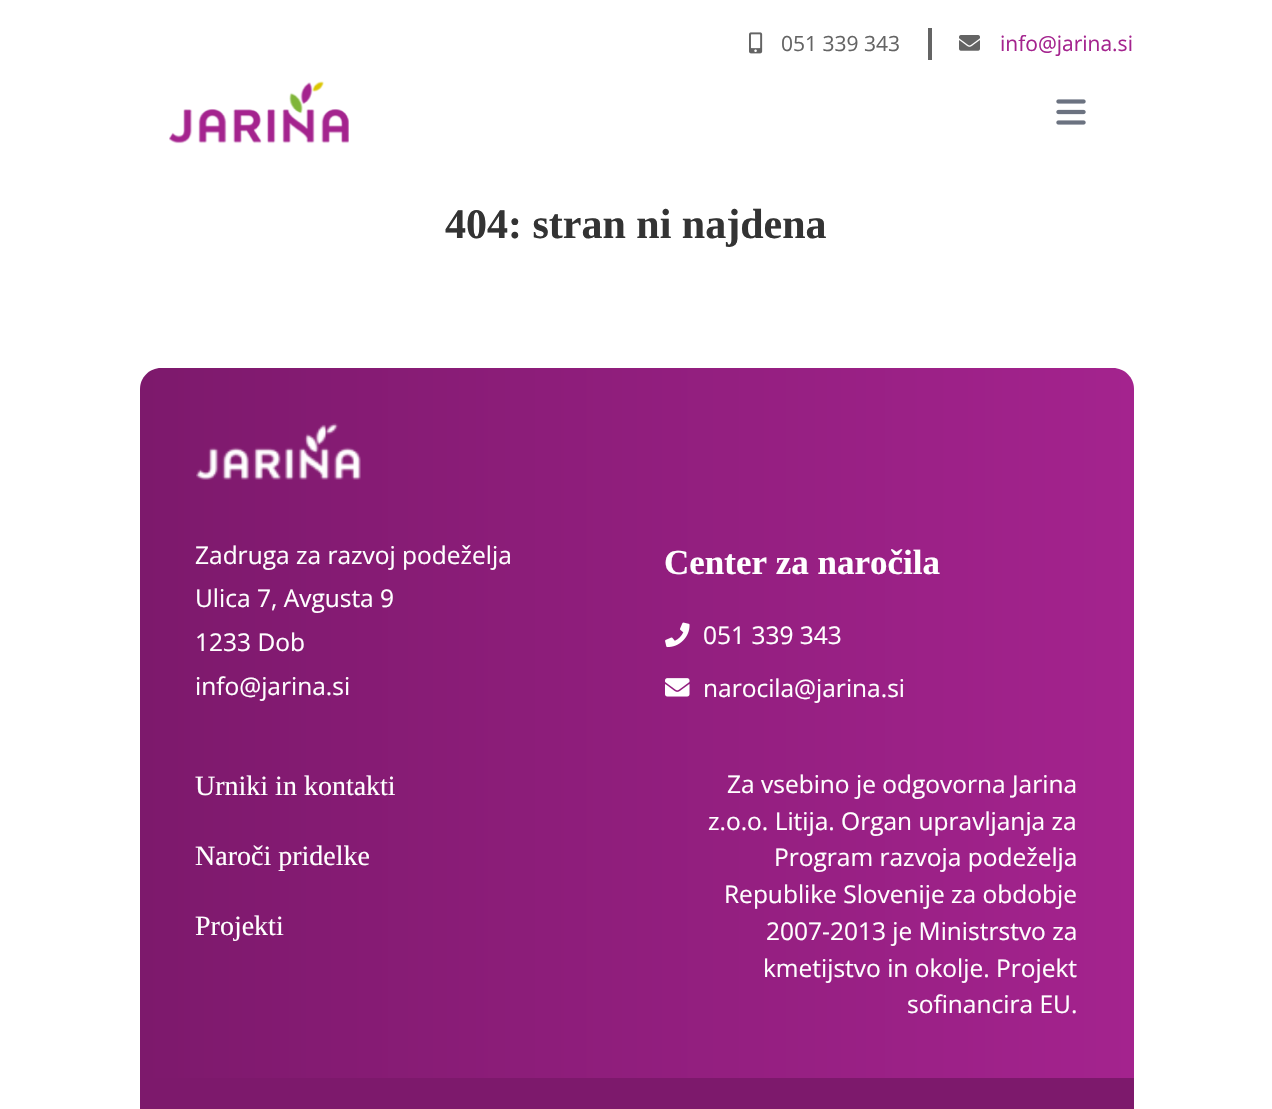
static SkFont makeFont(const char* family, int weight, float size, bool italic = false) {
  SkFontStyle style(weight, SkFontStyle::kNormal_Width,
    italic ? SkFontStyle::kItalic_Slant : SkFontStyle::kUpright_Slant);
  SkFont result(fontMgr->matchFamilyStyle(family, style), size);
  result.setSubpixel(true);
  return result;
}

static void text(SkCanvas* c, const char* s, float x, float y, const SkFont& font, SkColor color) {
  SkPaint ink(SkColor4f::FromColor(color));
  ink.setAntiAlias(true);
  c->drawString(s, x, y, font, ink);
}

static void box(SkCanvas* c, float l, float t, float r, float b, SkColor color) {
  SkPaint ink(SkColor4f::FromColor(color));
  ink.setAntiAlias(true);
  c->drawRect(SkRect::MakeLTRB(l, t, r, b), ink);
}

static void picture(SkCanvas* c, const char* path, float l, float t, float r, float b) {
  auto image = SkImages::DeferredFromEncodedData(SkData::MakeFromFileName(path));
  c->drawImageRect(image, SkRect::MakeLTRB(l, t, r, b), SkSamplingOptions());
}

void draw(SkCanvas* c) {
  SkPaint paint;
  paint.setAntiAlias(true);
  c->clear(0xffffffff);
  picture(c, "img_01.png", 749, 32, 763, 54);
  SkFont face1 = makeFont("Open Sans", 400, 21);
  text(c, "051 339 343", 781, 51, face1, 0xff646464);
  box(c, 928, 28, 932, 60, 0xff646464);
  picture(c, "img_02.png", 959, 35, 980, 51);
  text(c, "info@jarina.si", 1000, 51, face1, 0xffa4238e);
  picture(c, "img_03.png", 169, 81, 349, 144);
  picture(c, "img_04.png", 1056, 99, 1086, 125);
  SkFont face2 = makeFont("Liberation Serif", 700, 42);
  text(c, "404: stran ni najdena", 445, 238, face2, 0xff333333);
  {
    const SkColor colors[] = {0xff7d196c, 0xffa4238e};
    const float stops[] = {0, 1};
    const SkPoint ends[] = {{140, 723}, {1134, 723}};
    paint.setShader(SkGradientShader::MakeLinear(ends, colors, stops, 2, SkTileMode::kClamp));
    paint.setAlpha(255);
  }
  c->drawPath(SkPathBuilder().moveTo(161, 368).lineTo(1113, 368).cubicTo(1124.5f, 368, 1134, 377.5f, 1134, 389).lineTo(1134, 1078).lineTo(140, 1078).lineTo(140, 389).cubicTo(140, 377.5f, 149.5f, 368, 161, 368).close().detach(), paint);
  picture(c, "img_05.png", 196, 423, 361, 480);
  SkFont face3 = makeFont("Open Sans", 400, 24.5f);
  text(c, "Zadruga za razvoj podeželja", 195, 564, face3, 0xffffffff);
  text(c, "Ulica 7, Avgusta 9", 195, 607, face3, 0xffffffff);
  text(c, "1233 Dob", 195, 651, face3, 0xffffffff);
  text(c, "info@jarina.si", 195, 695, face3, 0xffffffff);
  SkFont face4 = makeFont("Liberation Serif", 700, 35);
  text(c, "Center za naročila", 664, 574, face4, 0xffffffff);
  picture(c, "img_06.png", 665, 622, 690, 648);
  text(c, "051 339 343", 703, 644, face3, 0xffffffff);
  picture(c, "img_07.png", 665, 678, 690, 697);
  text(c, "narocila@jarina.si", 703, 697, face3, 0xffffffff);
  SkFont face5 = makeFont("Liberation Serif", 400, 28);
  text(c, "Urniki in kontakti", 195, 795, face5, 0xffffffff);
  text(c, "Naroči pridelke", 195, 865, face5, 0xffffffff);
  text(c, "Projekti", 195, 935, face5, 0xffffffff);
  text(c, "Za vsebino je odgovorna Jarina", 727, 793, face3, 0xffffffff);
  text(c, "z.o.o. Litija. Organ upravljanja za", 708, 830, face3, 0xffffffff);
  text(c, "Program razvoja podeželja", 774, 866, face3, 0xffffffff);
  text(c, "Republike Slovenije za obdobje", 724, 903, face3, 0xffffffff);
  text(c, "2007-2013 je Ministrstvo za", 766, 940, face3, 0xffffffff);
  text(c, "kmetijstvo in okolje. Projekt", 763, 977, face3, 0xffffffff);
  text(c, "sofinancira EU.", 907, 1013, face3, 0xffffffff);
  box(c, 140, 1078, 1134, 1109, 0xff7d196c);
}
